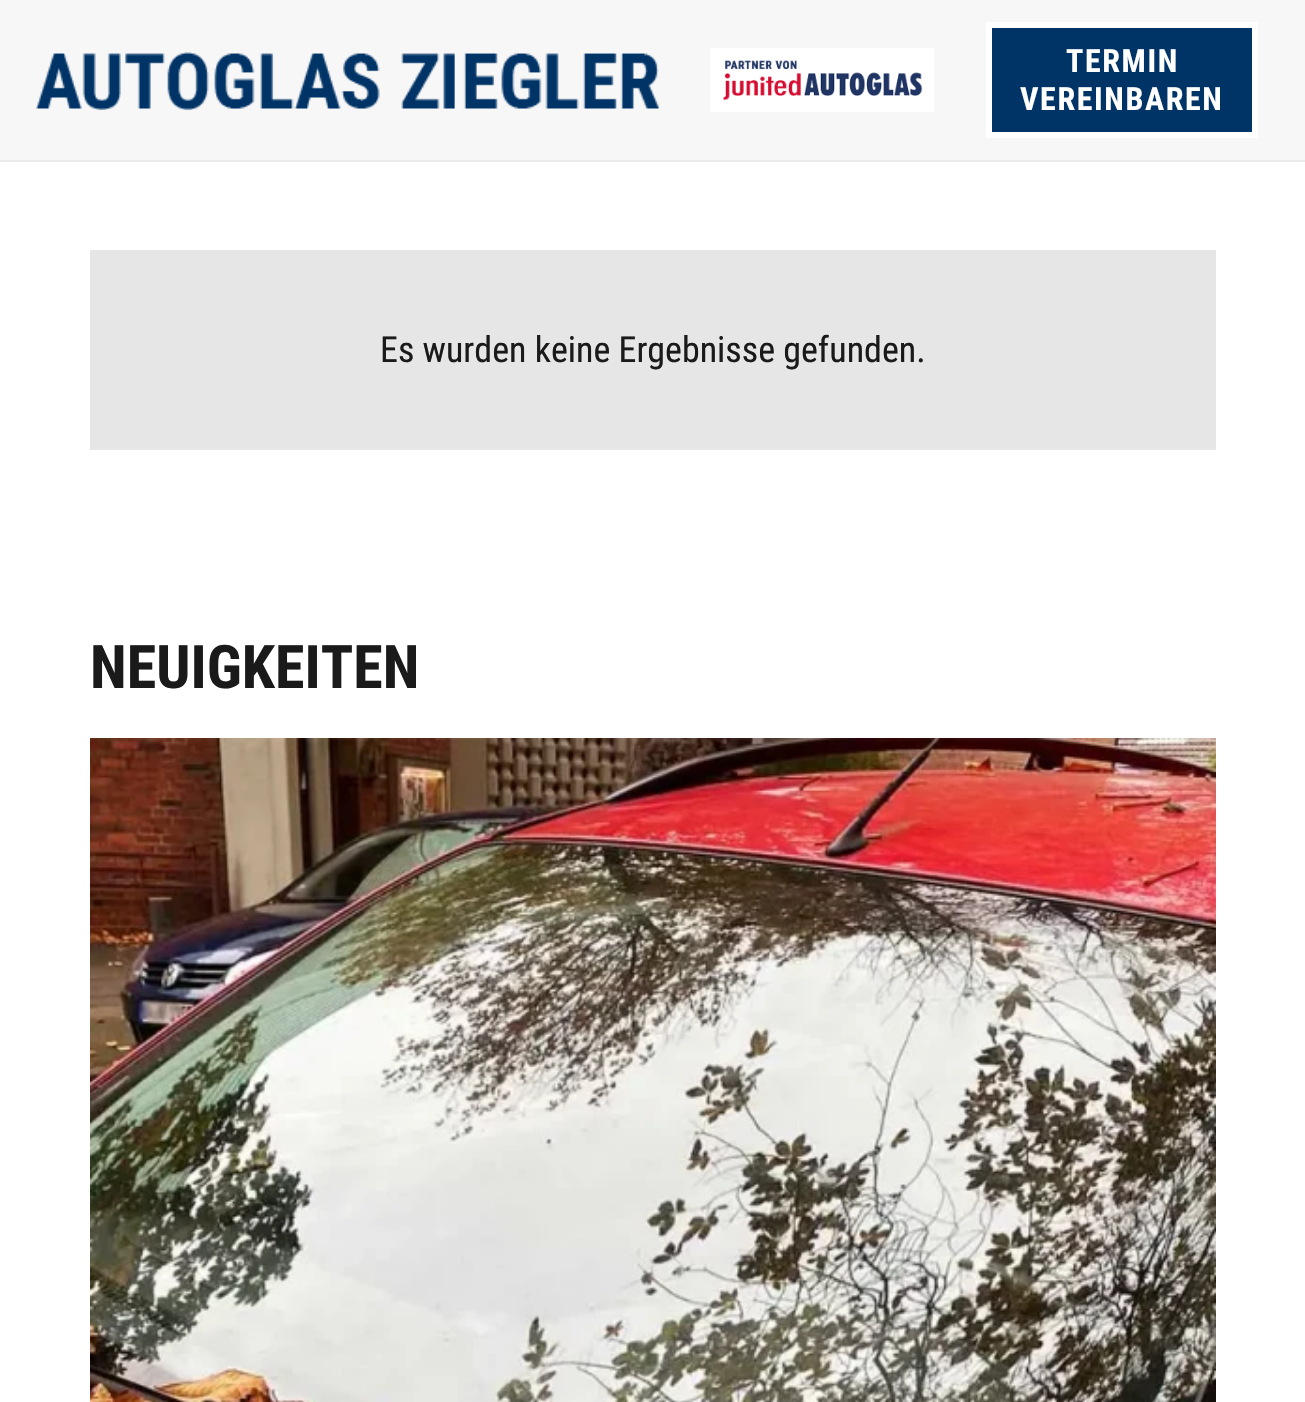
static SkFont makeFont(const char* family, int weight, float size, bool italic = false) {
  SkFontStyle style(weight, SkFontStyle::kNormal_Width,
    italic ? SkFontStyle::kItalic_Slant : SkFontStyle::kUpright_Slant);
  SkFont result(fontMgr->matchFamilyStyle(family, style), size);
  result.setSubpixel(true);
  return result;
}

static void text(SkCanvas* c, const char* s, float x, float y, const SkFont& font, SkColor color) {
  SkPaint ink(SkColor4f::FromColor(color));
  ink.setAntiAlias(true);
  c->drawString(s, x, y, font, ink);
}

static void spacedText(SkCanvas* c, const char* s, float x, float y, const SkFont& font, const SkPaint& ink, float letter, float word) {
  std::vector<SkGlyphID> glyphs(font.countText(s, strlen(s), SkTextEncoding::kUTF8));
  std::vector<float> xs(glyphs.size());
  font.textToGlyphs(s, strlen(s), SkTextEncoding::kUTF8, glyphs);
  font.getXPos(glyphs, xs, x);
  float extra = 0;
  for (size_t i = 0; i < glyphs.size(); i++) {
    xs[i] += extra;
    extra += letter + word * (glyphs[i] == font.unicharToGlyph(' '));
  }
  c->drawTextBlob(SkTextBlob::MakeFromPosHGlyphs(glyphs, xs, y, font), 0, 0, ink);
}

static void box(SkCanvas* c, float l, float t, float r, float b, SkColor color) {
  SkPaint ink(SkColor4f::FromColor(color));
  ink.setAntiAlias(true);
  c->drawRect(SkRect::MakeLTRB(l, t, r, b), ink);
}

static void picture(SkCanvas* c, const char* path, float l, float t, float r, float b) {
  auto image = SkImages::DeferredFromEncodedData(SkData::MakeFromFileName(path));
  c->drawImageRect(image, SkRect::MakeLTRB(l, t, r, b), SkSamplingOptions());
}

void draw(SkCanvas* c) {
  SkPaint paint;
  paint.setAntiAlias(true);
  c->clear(0xffffffff);
  box(c, 0, 160, 1305, 162, 0xffebebeb);
  box(c, 0, 0, 1305, 160, 0xfff7f7f7);
  picture(c, "img_01.png", 36, 52, 660, 110);
  picture(c, "img_02.png", 710, 48, 934, 112);
  box(c, 992, 28, 1252, 132, 0xff003366);
  paint.setStyle(SkPaint::kStroke_Style);
  paint.setStrokeWidth(6);
  paint.setColor(0xffffffff);
  c->drawRect(SkRect::MakeLTRB(989, 25, 1255, 135), paint);
  SkFont face1 = makeFont("Roboto Condensed", 700, 32);
  paint.setStyle(SkPaint::kFill_Style);
  spacedText(c, "TERMIN", 1066, 72, face1, paint, 1.6f, 0);
  spacedText(c, "VEREINBAREN", 1020, 110, face1, paint, 1.6f, 0);
  box(c, 90, 250, 1216, 450, 0xffe6e6e6);
  SkFont face2 = makeFont("Roboto Condensed", 400, 36);
  text(c, "Es wurden keine Ergebnisse gefunden.", 380, 362, face2, 0xff1a1a1a);
  SkFont face3 = makeFont("Roboto Condensed", 700, 60);
  text(c, "NEUIGKEITEN", 90, 688, face3, 0xff1a1a1a);
  picture(c, "img_03.png", 90, 738, 1216, 1402);
}
